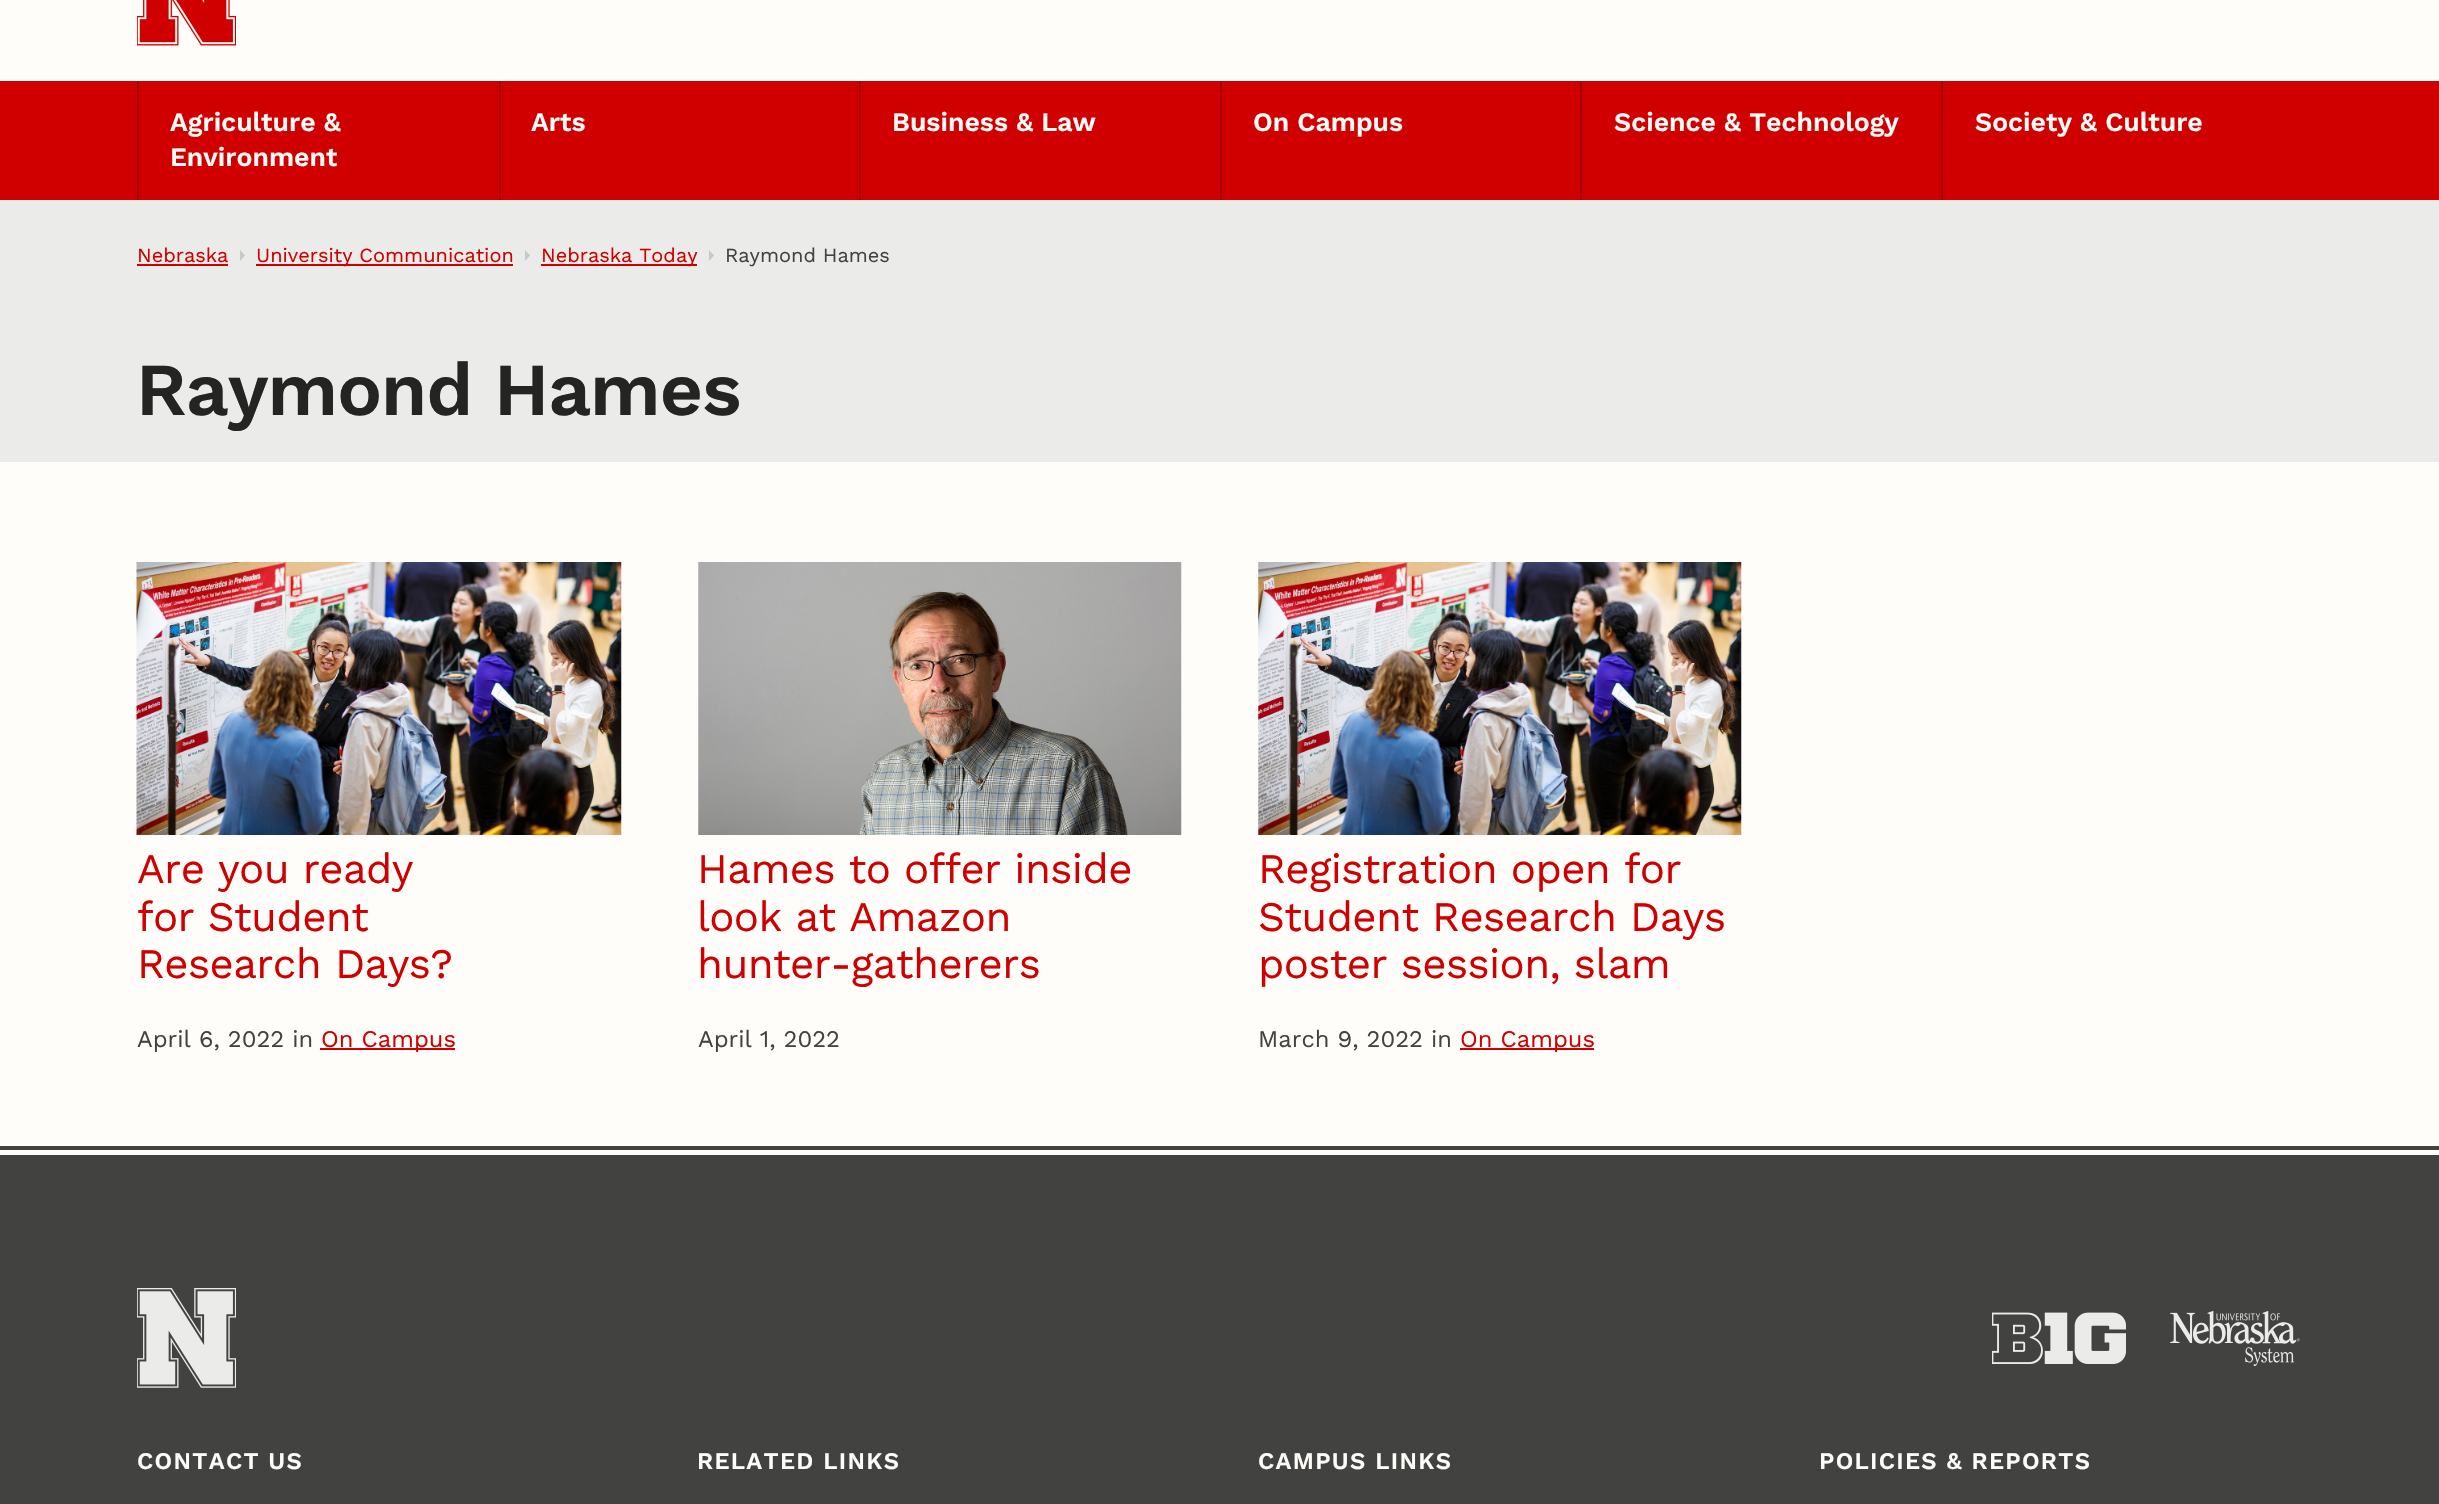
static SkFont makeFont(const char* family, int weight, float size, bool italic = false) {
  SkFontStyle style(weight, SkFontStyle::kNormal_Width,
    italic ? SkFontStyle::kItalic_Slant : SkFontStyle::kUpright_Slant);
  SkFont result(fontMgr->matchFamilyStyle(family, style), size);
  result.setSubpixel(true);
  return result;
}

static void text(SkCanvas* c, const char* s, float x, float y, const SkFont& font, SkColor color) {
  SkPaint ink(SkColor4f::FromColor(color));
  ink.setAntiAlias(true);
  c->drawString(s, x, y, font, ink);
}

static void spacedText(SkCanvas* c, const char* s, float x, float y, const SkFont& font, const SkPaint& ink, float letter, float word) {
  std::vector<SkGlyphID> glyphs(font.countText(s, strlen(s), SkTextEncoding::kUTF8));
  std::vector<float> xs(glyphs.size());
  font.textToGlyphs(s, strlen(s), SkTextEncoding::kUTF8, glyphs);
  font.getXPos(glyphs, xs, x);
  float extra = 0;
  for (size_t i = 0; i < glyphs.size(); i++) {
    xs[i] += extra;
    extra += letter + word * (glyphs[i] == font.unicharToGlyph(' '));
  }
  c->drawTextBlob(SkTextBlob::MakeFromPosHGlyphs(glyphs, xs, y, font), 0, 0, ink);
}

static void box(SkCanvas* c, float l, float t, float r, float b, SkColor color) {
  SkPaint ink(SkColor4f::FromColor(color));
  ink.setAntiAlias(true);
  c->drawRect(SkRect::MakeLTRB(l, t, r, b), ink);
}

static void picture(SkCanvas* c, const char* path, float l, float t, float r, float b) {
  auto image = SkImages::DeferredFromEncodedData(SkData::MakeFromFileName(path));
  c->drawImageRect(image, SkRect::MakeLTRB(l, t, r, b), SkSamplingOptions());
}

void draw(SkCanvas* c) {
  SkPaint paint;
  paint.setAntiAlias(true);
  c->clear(0xfffefdfa);
  picture(c, "img_01.png", 137, 0, 236, 46);
  box(c, 0, 81, 2439, 200, 0xffd00000);
  box(c, 137, 81, 139, 200, 0xffa00000);
  SkFont face1 = makeFont("Work Sans", 600, 26.6f);
  text(c, "Agriculture &", 170, 131, face1, 0xfffefdfa);
  text(c, "Environment", 170, 166, face1, 0xfffefdfa);
  box(c, 499, 81, 501, 200, 0xffa00000);
  text(c, "Arts", 531, 131, face1, 0xfffefdfa);
  box(c, 859, 81, 861, 200, 0xffa00000);
  text(c, "Business & Law", 892, 131, face1, 0xfffefdfa);
  box(c, 1220, 81, 1222, 200, 0xffa00000);
  text(c, "On Campus", 1253, 131, face1, 0xfffefdfa);
  box(c, 1580, 81, 1582, 200, 0xffa00000);
  text(c, "Science & Technology", 1614, 131, face1, 0xfffefdfa);
  box(c, 1941, 81, 1943, 200, 0xffa00000);
  text(c, "Society & Culture", 1975, 131, face1, 0xfffefdfa);
  box(c, 0, 200, 2439, 462, 0xffebebea);
  SkFont face2 = makeFont("Work Sans", 400, 20);
  text(c, "Nebraska", 137, 262, face2, 0xffd00000);
  box(c, 137, 264, 228, 266, 0xffd00000);
  paint.setColor(0xffc7c8ca);
  c->drawPath(SkPathBuilder().moveTo(240, 261).lineTo(240, 250).lineTo(245, 255.5f).close().detach(), paint);
  box(c, 256, 264, 513, 266, 0xffd00000);
  text(c, "University Communication", 256, 262, face2, 0xffd00000);
  c->drawPath(SkPathBuilder().moveTo(525, 261).lineTo(525, 250).lineTo(530, 255.5f).close().detach(), paint);
  box(c, 541, 264, 697, 266, 0xffd00000);
  text(c, "Nebraska Today", 541, 262, face2, 0xffd00000);
  c->drawPath(SkPathBuilder().moveTo(709, 261).lineTo(709, 250).lineTo(714, 255.5f).close().detach(), paint);
  text(c, "Raymond Hames", 725, 262, face2, 0xff424240);
  SkFont face3 = makeFont("Work Sans", 600, 74.75f);
  paint.setColor(0xff242423);
  spacedText(c, "Raymond Hames", 136, 415, face3, paint, -1, 0);
  picture(c, "img_02.png", 136, 562, 622, 835);
  SkFont face4 = makeFont("Work Sans", 400, 42);
  paint.setColor(0xffd00000);
  spacedText(c, "Are you ready", 137, 883, face4, paint, -0.6f, 0);
  spacedText(c, "for Student", 137, 931, face4, paint, -0.6f, 0);
  spacedText(c, "Research Days?", 137, 978, face4, paint, -0.6f, 0);
  SkFont face5 = makeFont("Work Sans", 400, 23.75f);
  text(c, "April 6, 2022 in", 137, 1047, face5, 0xff424240);
  box(c, 320, 1048, 455, 1050, 0xffd00000);
  text(c, "On Campus", 321, 1047, face5, 0xffd00000);
  picture(c, "img_03.png", 698, 562, 1182, 835);
  spacedText(c, "Hames to offer inside", 697, 883, face4, paint, -0.6f, 0);
  spacedText(c, "look at Amazon", 697, 931, face4, paint, -0.6f, 0);
  spacedText(c, "hunter-gatherers", 697, 978, face4, paint, -0.6f, 0);
  text(c, "April 1, 2022", 698, 1047, face5, 0xff424240);
  picture(c, "img_04.png", 1258, 562, 1742, 835);
  spacedText(c, "Registration open for", 1258, 883, face4, paint, -0.6f, 0);
  spacedText(c, "Student Research Days", 1258, 931, face4, paint, -0.6f, 0);
  spacedText(c, "poster session, slam", 1258, 978, face4, paint, -0.6f, 0);
  text(c, "March 9, 2022 in", 1258, 1047, face5, 0xff424240);
  box(c, 1460, 1048, 1594, 1050, 0xffd00000);
  text(c, "On Campus", 1460, 1047, face5, 0xffd00000);
  box(c, 0, 1155, 2439, 1504, 0xff424240);
  box(c, 0, 1146, 2439, 1150, 0xff424240);
  picture(c, "img_05.png", 137, 1288, 236, 1388);
  picture(c, "img_06.png", 1992, 1312, 2126, 1364);
  picture(c, "img_07.png", 2170, 1311, 2300, 1366);
  SkFont face6 = makeFont("Work Sans", 600, 23.75f);
  paint.setColor(0xfffefdfa);
  spacedText(c, "CONTACT US", 137, 1469, face6, paint, 1.3f, 0);
  spacedText(c, "RELATED LINKS", 697, 1469, face6, paint, 1.3f, 0);
  spacedText(c, "CAMPUS LINKS", 1258, 1469, face6, paint, 1.3f, 0);
  spacedText(c, "POLICIES & REPORTS", 1819, 1469, face6, paint, 1.3f, 0);
}
